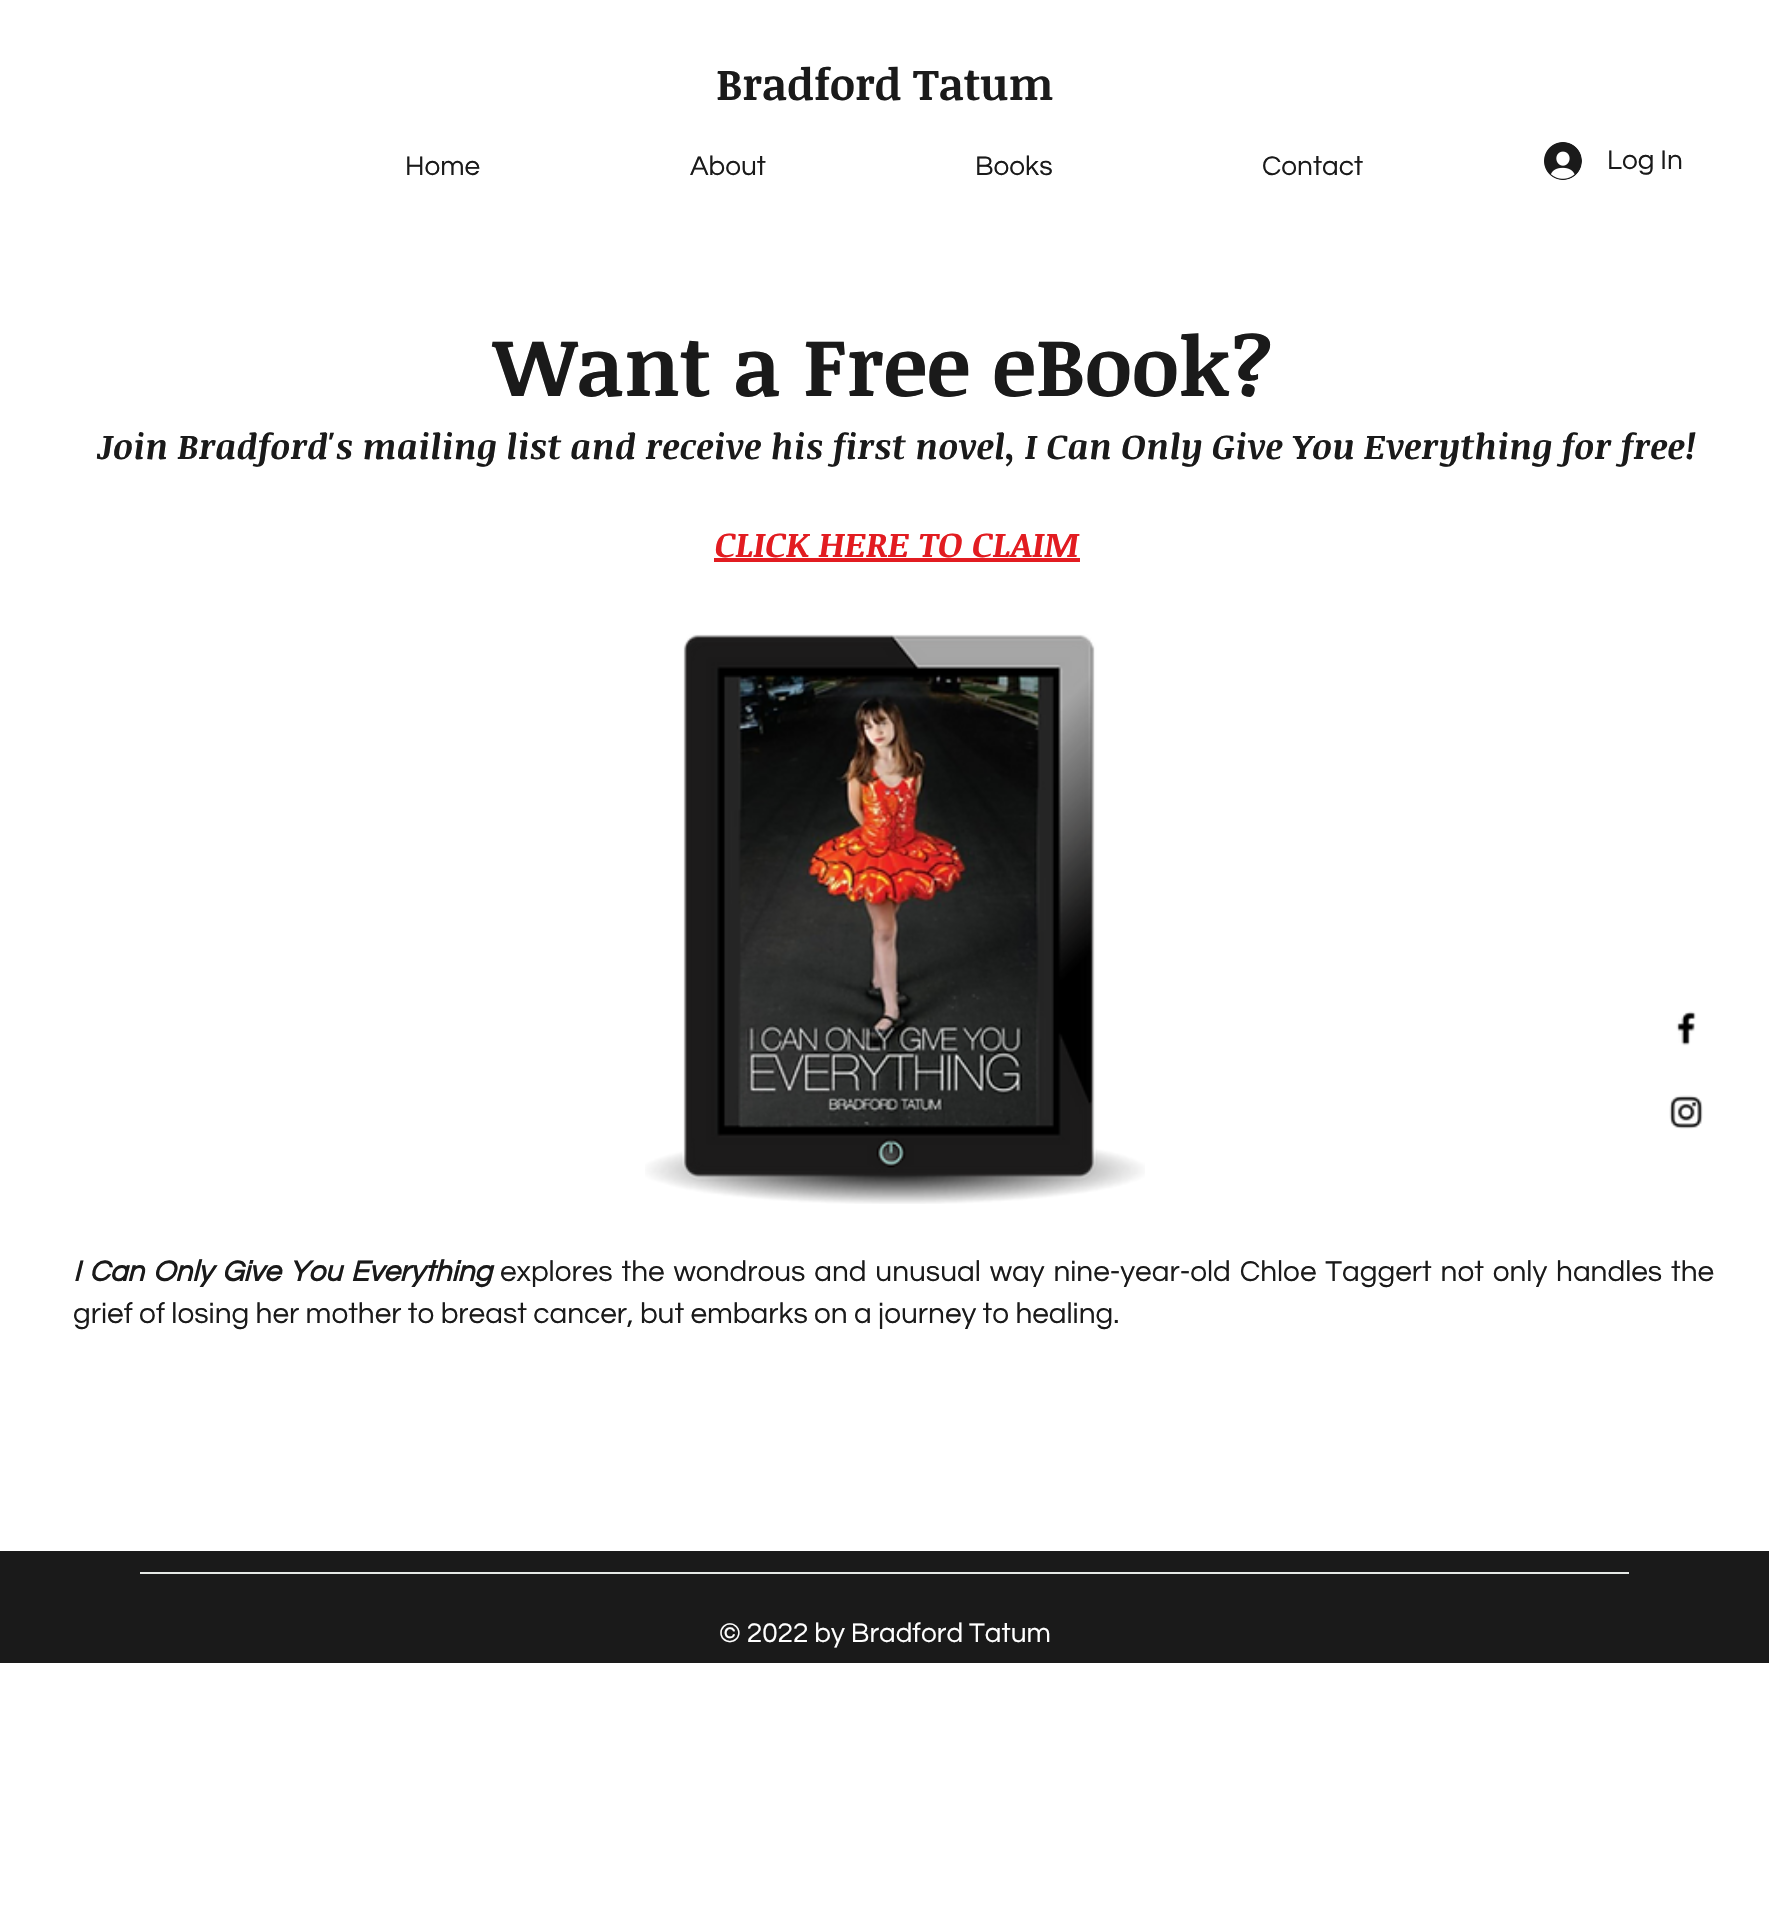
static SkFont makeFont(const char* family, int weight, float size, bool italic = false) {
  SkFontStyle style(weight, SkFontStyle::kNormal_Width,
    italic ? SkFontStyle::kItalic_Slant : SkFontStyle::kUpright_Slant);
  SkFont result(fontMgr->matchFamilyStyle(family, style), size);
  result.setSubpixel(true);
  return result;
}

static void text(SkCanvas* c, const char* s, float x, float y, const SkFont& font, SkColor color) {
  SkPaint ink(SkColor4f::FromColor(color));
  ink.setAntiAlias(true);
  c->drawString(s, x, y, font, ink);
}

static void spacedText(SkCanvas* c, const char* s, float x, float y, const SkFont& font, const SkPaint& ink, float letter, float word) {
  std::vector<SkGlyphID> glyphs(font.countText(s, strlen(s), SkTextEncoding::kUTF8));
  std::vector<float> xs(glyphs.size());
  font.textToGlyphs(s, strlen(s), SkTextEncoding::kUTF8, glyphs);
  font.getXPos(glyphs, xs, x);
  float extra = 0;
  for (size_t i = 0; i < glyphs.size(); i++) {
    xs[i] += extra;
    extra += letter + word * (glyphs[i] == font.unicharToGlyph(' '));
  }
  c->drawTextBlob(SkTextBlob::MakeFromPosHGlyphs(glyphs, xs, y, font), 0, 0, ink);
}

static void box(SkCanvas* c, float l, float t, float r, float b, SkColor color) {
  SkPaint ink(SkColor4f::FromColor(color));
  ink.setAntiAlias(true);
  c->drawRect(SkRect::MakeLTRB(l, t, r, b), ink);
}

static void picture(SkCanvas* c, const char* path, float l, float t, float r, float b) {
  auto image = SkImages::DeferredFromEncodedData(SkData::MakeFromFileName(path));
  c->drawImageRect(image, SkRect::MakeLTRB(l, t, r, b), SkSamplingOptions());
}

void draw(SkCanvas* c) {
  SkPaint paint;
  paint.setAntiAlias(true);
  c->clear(0xffffffff);
  SkFont face1 = makeFont("Noticia Text", 700, 43.75f);
  text(c, "Bradford Tatum", 716, 100, face1, 0xff1a1a1a);
  SkFont face2 = makeFont("Questrial", 400, 28);
  text(c, "Home", 405, 175, face2, 0xff1a1a1a);
  text(c, "About", 690, 175, face2, 0xff1a1a1a);
  text(c, "Books", 975, 175, face2, 0xff1a1a1a);
  text(c, "Contact", 1262, 175, face2, 0xff1a1a1a);
  picture(c, "img_01.png", 1544, 142, 1582, 180);
  text(c, "Log In", 1607, 169, face2, 0xff1a1a1a);
  SkFont face3 = makeFont("Noticia Text", 700, 82.25f);
  text(c, "Want a Free eBook?", 493, 396, face3, 0xff1a1a1a);
  SkFont face4 = makeFont("Noticia Text", 700, 35, true);
  text(c, "Join Bradford's mailing list and receive his first novel, I Can Only Give You Everything for free!", 97, 459, face4, 0xff1a1a1a);
  text(c, "CLICK HERE TO CLAIM", 715, 557, face4, 0xffe21c21);
  box(c, 714, 558, 1080, 562, 0xffe21c21);
  picture(c, "img_02.png", 645, 634, 1145, 1204);
  SkFont face5 = makeFont("Questrial", 700, 29.75f, true);
  paint.setColor(0xff1a1a1a);
  spacedText(c, "I Can Only Give You Everything", 73, 1281, face5, paint, 0, 2.5f);
  SkFont face6 = makeFont("Questrial", 400, 29.75f);
  spacedText(c, "explores the wondrous and unusual way nine-year-old Chloe Taggert not only handles the", 500, 1281, face6, paint, 0, 2.5f);
  text(c, "grief of losing her mother to breast cancer, but embarks on a journey to healing.", 73, 1323, face6, 0xff1a1a1a);
  picture(c, "img_03.png", 1676, 1011, 1696, 1046);
  picture(c, "img_04.png", 1669, 1095, 1703, 1129);
  box(c, 0, 1551, 1769, 1663, 0xff1a1a1a);
  box(c, 140, 1572, 1629, 1574, 0xffe6e9e6);
  text(c, "© 2022 by Bradford Tatum", 719, 1642, face2, 0xffffffff);
}
